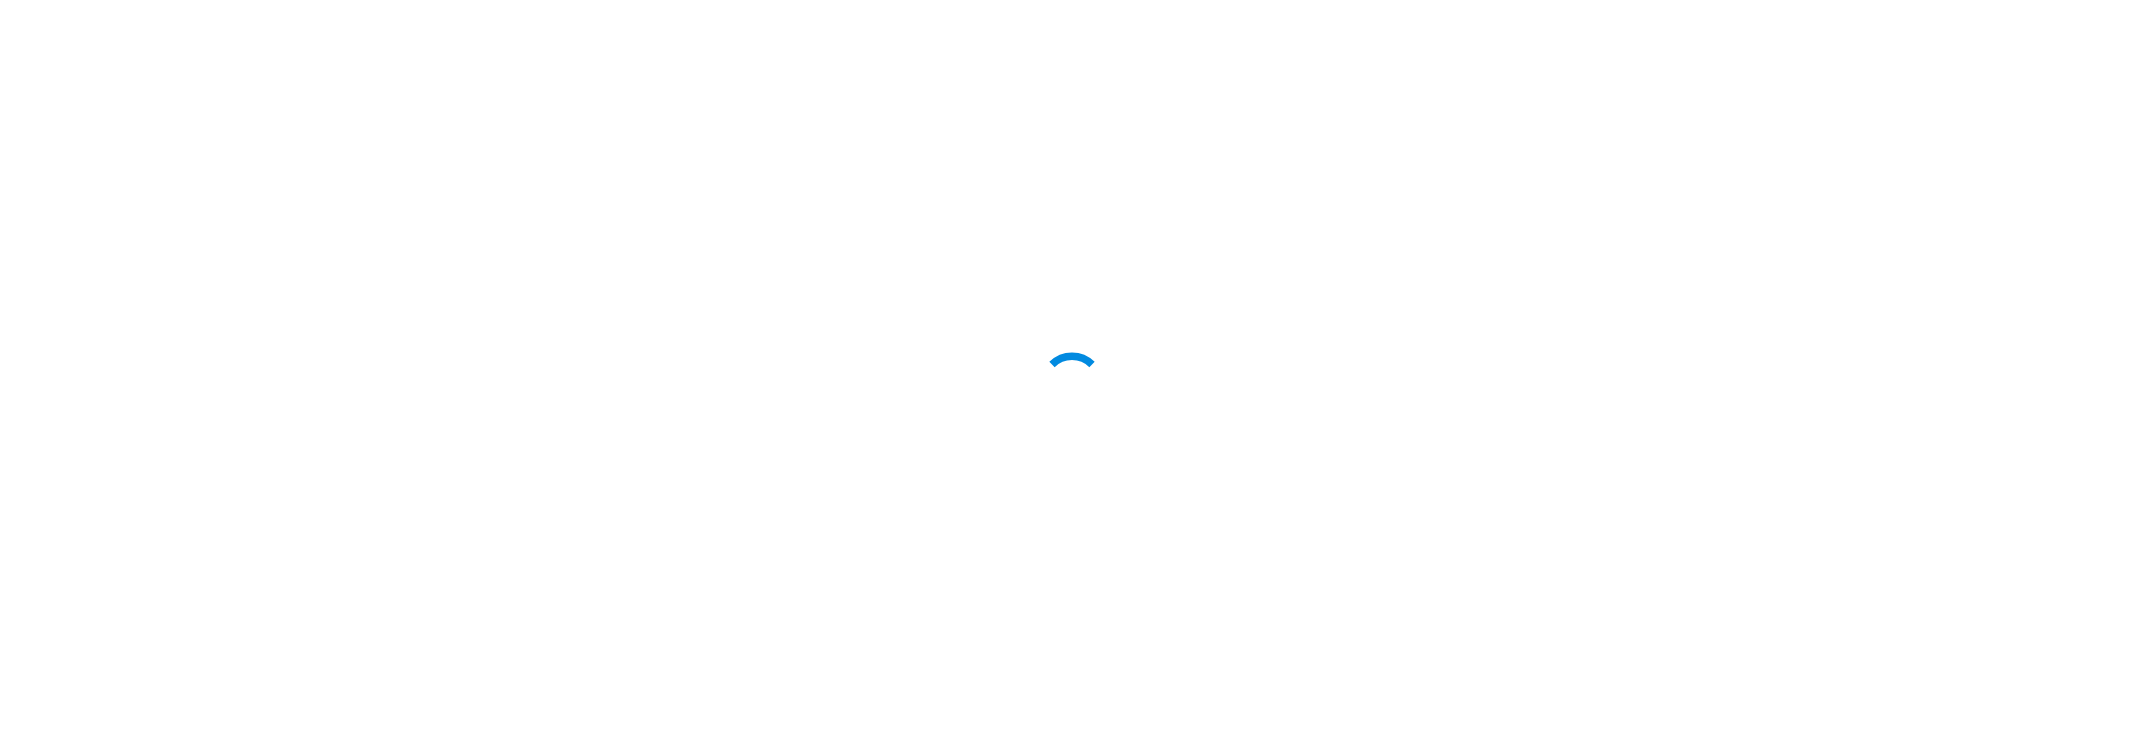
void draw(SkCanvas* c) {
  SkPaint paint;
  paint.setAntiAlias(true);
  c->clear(0xffffffff);
  paint.setStyle(SkPaint::kStroke_Style);
  paint.setStrokeWidth(7.5f);
  paint.setColor(0xff018ae0);
  c->drawPath(SkPathBuilder().moveTo(1052, 364.5f).cubicTo(1063, 353.5f, 1081, 353.5f, 1092, 364.5f).moveTo(1052, 364.5f).cubicTo(1063, 353.5f, 1081, 353.5f, 1092, 364.5f).moveTo(1052, 364.5f).cubicTo(1063, 353.5f, 1081, 353.5f, 1092, 364.5f).moveTo(1052, 364.5f).cubicTo(1063, 353.5f, 1081, 353.5f, 1092, 364.5f).detach(), paint);
}
